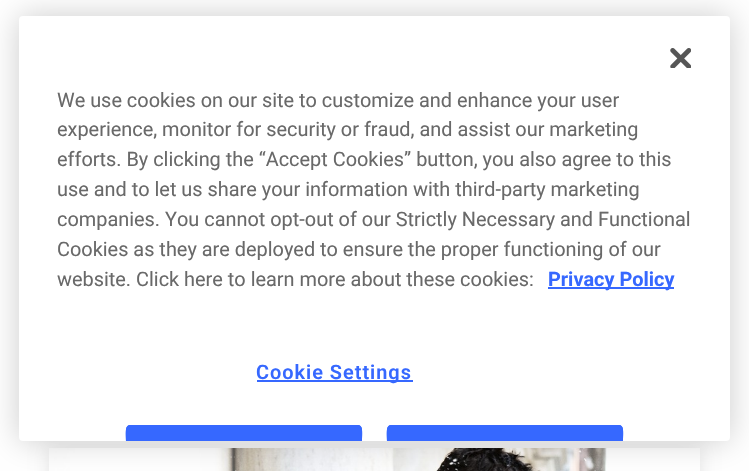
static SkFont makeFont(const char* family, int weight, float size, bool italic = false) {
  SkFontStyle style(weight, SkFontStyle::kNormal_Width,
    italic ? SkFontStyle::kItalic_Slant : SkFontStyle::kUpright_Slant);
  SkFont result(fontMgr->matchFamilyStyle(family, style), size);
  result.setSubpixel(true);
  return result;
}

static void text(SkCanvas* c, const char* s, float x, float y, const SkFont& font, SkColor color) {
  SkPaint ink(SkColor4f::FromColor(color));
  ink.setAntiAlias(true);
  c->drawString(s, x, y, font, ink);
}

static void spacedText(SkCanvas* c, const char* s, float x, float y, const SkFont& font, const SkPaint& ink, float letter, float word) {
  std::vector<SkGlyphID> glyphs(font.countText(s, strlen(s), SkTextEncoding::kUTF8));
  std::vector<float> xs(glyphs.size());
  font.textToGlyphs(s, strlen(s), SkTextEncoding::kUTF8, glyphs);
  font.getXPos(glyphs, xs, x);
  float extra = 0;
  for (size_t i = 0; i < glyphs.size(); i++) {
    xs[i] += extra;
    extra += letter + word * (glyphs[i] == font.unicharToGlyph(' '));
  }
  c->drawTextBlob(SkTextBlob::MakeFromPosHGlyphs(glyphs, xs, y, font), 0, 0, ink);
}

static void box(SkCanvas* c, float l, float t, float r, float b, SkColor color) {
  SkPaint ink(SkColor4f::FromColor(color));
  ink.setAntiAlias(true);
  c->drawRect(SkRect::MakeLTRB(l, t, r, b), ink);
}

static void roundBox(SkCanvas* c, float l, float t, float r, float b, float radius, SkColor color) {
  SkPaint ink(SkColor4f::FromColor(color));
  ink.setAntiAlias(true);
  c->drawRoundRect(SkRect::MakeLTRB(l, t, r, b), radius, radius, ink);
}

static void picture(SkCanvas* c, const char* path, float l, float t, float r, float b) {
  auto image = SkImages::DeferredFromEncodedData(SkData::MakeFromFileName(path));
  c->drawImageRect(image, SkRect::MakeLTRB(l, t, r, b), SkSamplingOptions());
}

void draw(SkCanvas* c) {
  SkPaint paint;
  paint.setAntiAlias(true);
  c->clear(0xffffffff);
  paint.setColor(0x1a000000);
  paint.setMaskFilter(SkMaskFilter::MakeBlur(kNormal_SkBlurStyle, 9));
  c->drawRect(SkRect::MakeLTRB(49, 448, 700, 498), paint);
  paint.setMaskFilter(nullptr);
  picture(c, "img_02.png", 49, 448, 700, 471);
  paint.setColor(0x33000000);
  paint.setMaskFilter(SkMaskFilter::MakeBlur(kNormal_SkBlurStyle, 16));
  c->drawRoundRect(SkRect::MakeLTRB(19, 16, 730, 441), 4, 4, paint);
  paint.setMaskFilter(nullptr);
  roundBox(c, 19, 16, 730, 441, 4, 0xffffffff);
  picture(c, "img_01.png", 670, 48, 691, 68);
  SkFont face1 = makeFont("Roboto", 400, 19.9f);
  text(c, "We use cookies on our site to customize and enhance your user", 57, 107, face1, 0xff696969);
  text(c, "experience, monitor for security or fraud, and assist our marketing", 57, 136, face1, 0xff696969);
  text(c, "efforts. By clicking the “Accept Cookies” button, you also agree to this", 57, 166, face1, 0xff696969);
  text(c, "use and to let us share your information with third-party marketing", 57, 196, face1, 0xff696969);
  text(c, "companies. You cannot opt-out of our Strictly Necessary and Functional", 57, 226, face1, 0xff696969);
  text(c, "Cookies as they are deployed to ensure the proper functioning of our", 57, 256, face1, 0xff696969);
  text(c, "website. Click here to learn more about these cookies:", 57, 286, face1, 0xff696969);
  box(c, 548, 287, 674, 289, 0xff3668ff);
  SkFont face2 = makeFont("Roboto", 700, 19.9f);
  text(c, "Privacy Policy", 548, 286, face2, 0xff3668ff);
  box(c, 257, 380, 413, 382, 0xff3668ff);
  SkFont face3 = makeFont("Roboto", 600, 19.9f);
  paint.setColor(0xff3668ff);
  spacedText(c, "Cookie Settings", 256, 379, face3, paint, 1, 0);
  c->drawPath(SkPathBuilder().moveTo(130, 425).lineTo(358, 425).cubicTo(360, 425, 362, 427, 362, 429).lineTo(362, 441).lineTo(126, 441).lineTo(126, 429).cubicTo(126, 427, 128, 425, 130, 425).close().detach(), paint);
  c->drawPath(SkPathBuilder().moveTo(130, 425).cubicTo(124, 425, 126, 437, 126, 441).lineTo(128, 441).lineTo(128, 429).cubicTo(128, 428, 129, 427, 130, 427).lineTo(358, 427).cubicTo(359, 427, 360, 428, 360, 429).lineTo(360, 441).lineTo(362, 441).cubicTo(362, 437, 364, 425, 358, 425).close().detach(), paint);
  c->drawPath(SkPathBuilder().moveTo(391, 425).lineTo(619, 425).cubicTo(621, 425, 623, 427, 623, 429).lineTo(623, 441).lineTo(387, 441).lineTo(387, 429).cubicTo(387, 427, 389, 425, 391, 425).close().detach(), paint);
  c->drawPath(SkPathBuilder().moveTo(391, 425).cubicTo(385, 425, 387, 437, 387, 441).lineTo(389, 441).lineTo(389, 429).cubicTo(389, 428, 390, 427, 391, 427).lineTo(619, 427).cubicTo(620, 427, 621, 428, 621, 429).lineTo(621, 441).lineTo(623, 441).cubicTo(623, 437, 625, 425, 619, 425).close().detach(), paint);
}
